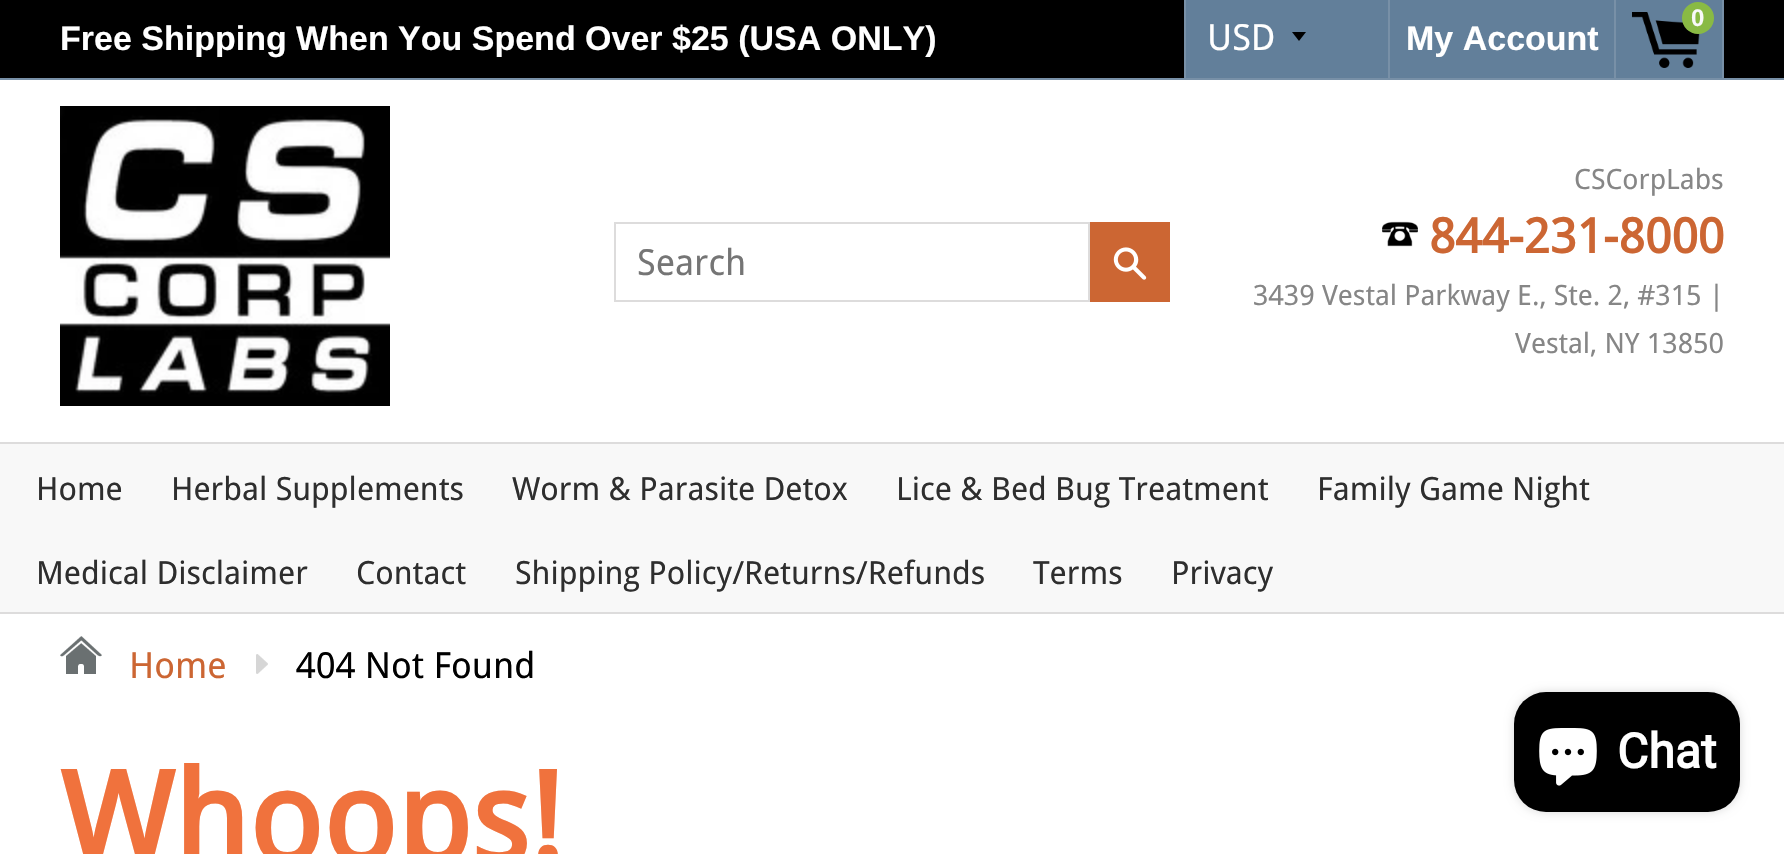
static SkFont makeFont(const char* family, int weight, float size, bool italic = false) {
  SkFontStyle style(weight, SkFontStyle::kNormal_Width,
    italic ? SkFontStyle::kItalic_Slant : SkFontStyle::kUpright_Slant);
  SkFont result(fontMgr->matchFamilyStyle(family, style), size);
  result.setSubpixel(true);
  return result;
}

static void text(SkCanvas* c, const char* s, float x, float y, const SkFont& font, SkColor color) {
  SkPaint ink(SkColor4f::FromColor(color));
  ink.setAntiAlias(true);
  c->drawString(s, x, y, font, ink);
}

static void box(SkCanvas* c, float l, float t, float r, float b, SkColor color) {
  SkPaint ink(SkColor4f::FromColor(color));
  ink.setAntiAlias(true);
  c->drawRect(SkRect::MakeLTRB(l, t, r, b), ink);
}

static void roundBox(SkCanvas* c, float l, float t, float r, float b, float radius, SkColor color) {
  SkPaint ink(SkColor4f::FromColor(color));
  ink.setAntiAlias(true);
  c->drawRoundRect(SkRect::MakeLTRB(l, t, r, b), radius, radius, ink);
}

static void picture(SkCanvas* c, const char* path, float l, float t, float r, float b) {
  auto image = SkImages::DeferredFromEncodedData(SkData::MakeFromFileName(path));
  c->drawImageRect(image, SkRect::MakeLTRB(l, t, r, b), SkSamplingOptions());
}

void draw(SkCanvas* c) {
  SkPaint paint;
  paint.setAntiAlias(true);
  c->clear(0xffffffff);
  box(c, 0, 0, 1784, 78, 0xff000000);
  box(c, 0, 78, 1784, 80, 0xff7890a7);
  SkFont face1 = makeFont("Liberation Sans", 700, 34);
  text(c, "Free Shipping When You Spend Over $25 (USA ONLY)", 60, 50, face1, 0xffffffff);
  box(c, 1616, 0, 1722, 78, 0xff627f9a);
  box(c, 1722, 0, 1724, 78, 0xff7890a7);
  box(c, 1614, 0, 1616, 78, 0xff7890a7);
  picture(c, "img_01.png", 1632, 12, 1700, 68);
  paint.setColor(0xff89ba44);
  c->drawCircle(1698, 18, 16, paint);
  SkFont face2 = makeFont("Liberation Sans", 700, 24);
  text(c, "0", 1691, 26, face2, 0xfff9f9f9);
  box(c, 1186, 0, 1388, 78, 0xff627f9a);
  box(c, 1388, 0, 1390, 78, 0xff7890a7);
  box(c, 1184, 0, 1186, 78, 0xff7890a7);
  paint.setColor(0xff000000);
  c->drawPath(SkPathBuilder().moveTo(1292, 32).lineTo(1299, 41).lineTo(1306, 32).close().detach(), paint);
  SkFont face3 = makeFont("Droid Sans", 400, 36);
  text(c, "USD", 1207, 50, face3, 0xffffffff);
  box(c, 1390, 0, 1614, 78, 0xff627f9a);
  text(c, "My Account", 1406, 50, face1, 0xffffffff);
  picture(c, "img_02.png", 60, 106, 390, 406);
  paint.setStyle(SkPaint::kStroke_Style);
  paint.setStrokeWidth(2);
  paint.setColor(0xffdddcdc);
  c->drawRect(SkRect::MakeLTRB(615, 223, 1089, 301), paint);
  text(c, "Search", 637, 275, face3, 0xff757575);
  box(c, 1090, 222, 1170, 302, 0xffcc6633);
  picture(c, "img_03.png", 1113, 247, 1147, 280);
  SkFont face4 = makeFont("Droid Sans", 400, 28);
  text(c, "CSCorpLabs", 1574, 189, face4, 0xff868686);
  picture(c, "img_04.png", 1382, 221, 1418, 247);
  SkFont face5 = makeFont("Droid Sans", 700, 48);
  text(c, "844-231-8000", 1429, 253, face5, 0xffcc6633);
  text(c, "3439 Vestal Parkway E., Ste. 2, #315 |", 1253, 305, face4, 0xff868686);
  text(c, "Vestal, NY 13850", 1515, 353, face4, 0xff868686);
  box(c, 0, 444, 1784, 612, 0xfff8f8f8);
  box(c, 0, 442, 1784, 444, 0xffdddcdc);
  box(c, 0, 612, 1784, 614, 0xffdddcdc);
  SkFont face6 = makeFont("Droid Sans", 400, 32);
  text(c, "Home", 36, 500, face6, 0xff2e2e2e);
  text(c, "Herbal Supplements", 171, 500, face6, 0xff2e2e2e);
  text(c, "Worm & Parasite Detox", 512, 500, face6, 0xff2e2e2e);
  text(c, "Lice & Bed Bug Treatment", 896, 500, face6, 0xff2e2e2e);
  text(c, "Family Game Night", 1317, 500, face6, 0xff2e2e2e);
  text(c, "Medical Disclaimer", 36, 584, face6, 0xff2e2e2e);
  text(c, "Contact", 356, 584, face6, 0xff2e2e2e);
  text(c, "Shipping Policy/Returns/Refunds", 515, 584, face6, 0xff2e2e2e);
  text(c, "Terms", 1033, 584, face6, 0xff2e2e2e);
  text(c, "Privacy", 1171, 584, face6, 0xff2e2e2e);
  picture(c, "img_05.png", 60, 636, 102, 674);
  text(c, "Home", 129, 678, face3, 0xffcc6633);
  picture(c, "img_06.png", 256, 654, 268, 674);
  text(c, "404 Not Found", 296, 678, face3, 0xff000000);
  SkFont face7 = makeFont("Droid Sans", 700, 128);
  text(c, "Whoops!", 60, 864, face7, 0xfff0723d);
  paint.setStyle(SkPaint::kFill_Style);
  paint.setColor(0x26000000);
  paint.setMaskFilter(SkMaskFilter::MakeBlur(kNormal_SkBlurStyle, 5));
  c->drawRoundRect(SkRect::MakeLTRB(1514, 692, 1740, 812), 32, 32, paint);
  paint.setMaskFilter(nullptr);
  roundBox(c, 1514, 692, 1740, 812, 32, 0xff000000);
  picture(c, "img_07.png", 1539, 728, 1597, 786);
  SkFont face8 = makeFont("Roboto", 700, 48);
  text(c, "Chat", 1617, 768, face8, 0xffffffff);
}
